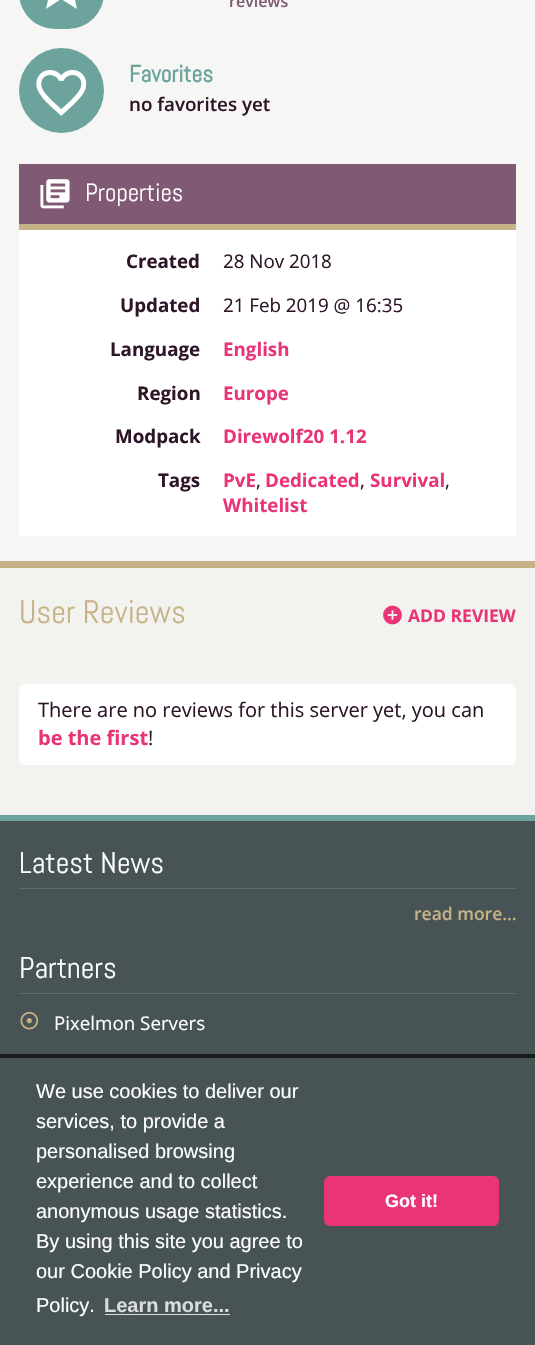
static SkFont makeFont(const char* family, int weight, float size, bool italic = false) {
  SkFontStyle style(weight, SkFontStyle::kNormal_Width,
    italic ? SkFontStyle::kItalic_Slant : SkFontStyle::kUpright_Slant);
  SkFont result(fontMgr->matchFamilyStyle(family, style), size);
  result.setSubpixel(true);
  return result;
}

static void text(SkCanvas* c, const char* s, float x, float y, const SkFont& font, SkColor color) {
  SkPaint ink(SkColor4f::FromColor(color));
  ink.setAntiAlias(true);
  c->drawString(s, x, y, font, ink);
}

static void box(SkCanvas* c, float l, float t, float r, float b, SkColor color) {
  SkPaint ink(SkColor4f::FromColor(color));
  ink.setAntiAlias(true);
  c->drawRect(SkRect::MakeLTRB(l, t, r, b), ink);
}

static void roundBox(SkCanvas* c, float l, float t, float r, float b, float radius, SkColor color) {
  SkPaint ink(SkColor4f::FromColor(color));
  ink.setAntiAlias(true);
  c->drawRoundRect(SkRect::MakeLTRB(l, t, r, b), radius, radius, ink);
}

static void picture(SkCanvas* c, const char* path, float l, float t, float r, float b) {
  auto image = SkImages::DeferredFromEncodedData(SkData::MakeFromFileName(path));
  c->drawImageRect(image, SkRect::MakeLTRB(l, t, r, b), SkSamplingOptions());
}

void draw(SkCanvas* c) {
  SkPaint paint;
  paint.setAntiAlias(true);
  c->clear(0xfff2f2ee);
  box(c, 0, 0, 535, 561, 0xfff6f6f4);
  roundBox(c, 19, -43, 104, 29, 42.5f, 0xff6ca39c);
  paint.setColor(0xffffffff);
  c->drawPath(SkPathBuilder().moveTo(61, -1).lineTo(46, 9).lineTo(50, -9).lineTo(36, -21).lineTo(54, -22).lineTo(61, -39).lineTo(68, -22).lineTo(86, -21).lineTo(73, -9).lineTo(77, 9).close().detach(), paint);
  SkFont face1 = makeFont("Open Sans", 600, 16);
  text(c, "reviews", 229, 7, face1, 0xff805a74);
  paint.setColor(0xff6ca39c);
  c->drawCircle(61.5f, 90.5f, 42.5f, paint);
  picture(c, "img_01.png", 36, 70, 87, 116);
  SkFont face2 = makeFont("Abel", 700, 23.5f);
  text(c, "Favorites", 129, 82, face2, 0xff6ca39c);
  SkFont face3 = makeFont("Open Sans", 600, 18.75f);
  text(c, "no favorites yet", 129, 111, face3, 0xff2e1527);
  box(c, 19, 164, 516, 224, 0xff805a74);
  box(c, 19, 224, 516, 230, 0xffc7b287);
  picture(c, "img_02.png", 40, 179, 70, 209);
  SkFont face4 = makeFont("Abel", 400, 25);
  text(c, "Properties", 85, 201, face4, 0xffffffff);
  box(c, 19, 230, 516, 536, 0xffffffff);
  SkFont face5 = makeFont("Open Sans", 700, 18.75f);
  text(c, "Created", 126, 268, face5, 0xff2e1527);
  SkFont face6 = makeFont("Open Sans", 400, 18.75f);
  text(c, "28 Nov 2018", 223, 268, face6, 0xff2e1527);
  text(c, "Updated", 120, 312, face5, 0xff2e1527);
  text(c, "21 Feb 2019 @ 16:35", 223, 312, face6, 0xff2e1527);
  text(c, "Language", 110, 356, face5, 0xff2e1527);
  text(c, "English", 223, 356, face5, 0xffe93578);
  text(c, "Region", 137, 400, face5, 0xff2e1527);
  text(c, "Europe", 223, 400, face5, 0xffe93578);
  text(c, "Modpack", 115, 443, face5, 0xff2e1527);
  text(c, "Direwolf20 1.12", 223, 443, face5, 0xffe93578);
  text(c, "Tags", 158, 487, face5, 0xff2e1527);
  text(c, "PvE", 223, 487, face5, 0xffe93578);
  text(c, ",", 256, 487, face6, 0xff2e1527);
  text(c, "Dedicated", 265, 487, face5, 0xffe93578);
  text(c, ",", 360, 487, face6, 0xff2e1527);
  text(c, "Survival", 370, 487, face5, 0xffe93578);
  text(c, ",", 445, 487, face6, 0xff2e1527);
  text(c, "Whitelist", 223, 512, face5, 0xffe93578);
  box(c, 0, 561, 535, 568, 0xffc7b287);
  SkFont face7 = makeFont("Abel", 400, 32.5f);
  text(c, "User Reviews", 19, 623, face7, 0xffc7b287);
  picture(c, "img_03.png", 383, 605, 402, 625);
  SkFont face8 = makeFont("Open Sans", 700, 17.5f);
  text(c, "ADD REVIEW", 408, 622, face8, 0xffe93578);
  roundBox(c, 19, 684, 516, 765, 6, 0xffffffff);
  SkFont face9 = makeFont("Open Sans", 400, 20);
  text(c, "There are no reviews for this server yet, you can", 38, 717, face9, 0xff2e1527);
  SkFont face10 = makeFont("Open Sans", 700, 20);
  text(c, "be the first", 38, 745, face10, 0xffe93578);
  text(c, "!", 148, 745, face9, 0xff2e1527);
  box(c, 0, 821, 535, 1054, 0xff475354);
  box(c, 0, 815, 535, 821, 0xff6ca39c);
  box(c, 19, 888, 516, 889, 0xff5e6e70);
  SkFont face11 = makeFont("Abel", 400, 30);
  text(c, "Latest News", 19, 873, face11, 0xffffffff);
  SkFont face12 = makeFont("Open Sans", 600, 17.5f);
  text(c, "read more...", 414, 920, face12, 0xffc7b287);
  box(c, 19, 993, 516, 994, 0xff5e6e70);
  text(c, "Partners", 19, 978, face11, 0xffffffff);
  picture(c, "img_04.png", 20, 1011, 39, 1030);
  text(c, "Pixelmon Servers", 54, 1030, face6, 0xffffffff);
  box(c, 0, 1054, 535, 1058, 0xff181c1d);
  box(c, 0, 1058, 535, 1345, 0xff475354);
  SkFont face13 = makeFont("Liberation Sans", 400, 20);
  text(c, "We use cookies to deliver our", 36, 1098, face13, 0xffffffff);
  text(c, "services, to provide a", 36, 1128, face13, 0xffffffff);
  text(c, "personalised browsing", 36, 1158, face13, 0xffffffff);
  text(c, "experience and to collect", 36, 1188, face13, 0xffffffff);
  text(c, "anonymous usage statistics.", 36, 1218, face13, 0xffffffff);
  text(c, "By using this site you agree to", 36, 1248, face13, 0xffffffff);
  text(c, "our Cookie Policy and Privacy", 36, 1278, face13, 0xffffffff);
  text(c, "Policy.", 36, 1312, face13, 0xffffffff);
  SkFont face14 = makeFont("Liberation Sans", 700, 20);
  text(c, "Learn more...", 104, 1312, face14, 0xffdadddd);
  box(c, 105, 1314, 230, 1315, 0xffdadddd);
  roundBox(c, 324, 1176, 499, 1226, 6, 0xffe93578);
  SkFont face15 = makeFont("Liberation Sans", 700, 18);
  text(c, "Got it!", 385, 1207, face15, 0xffffffff);
}
